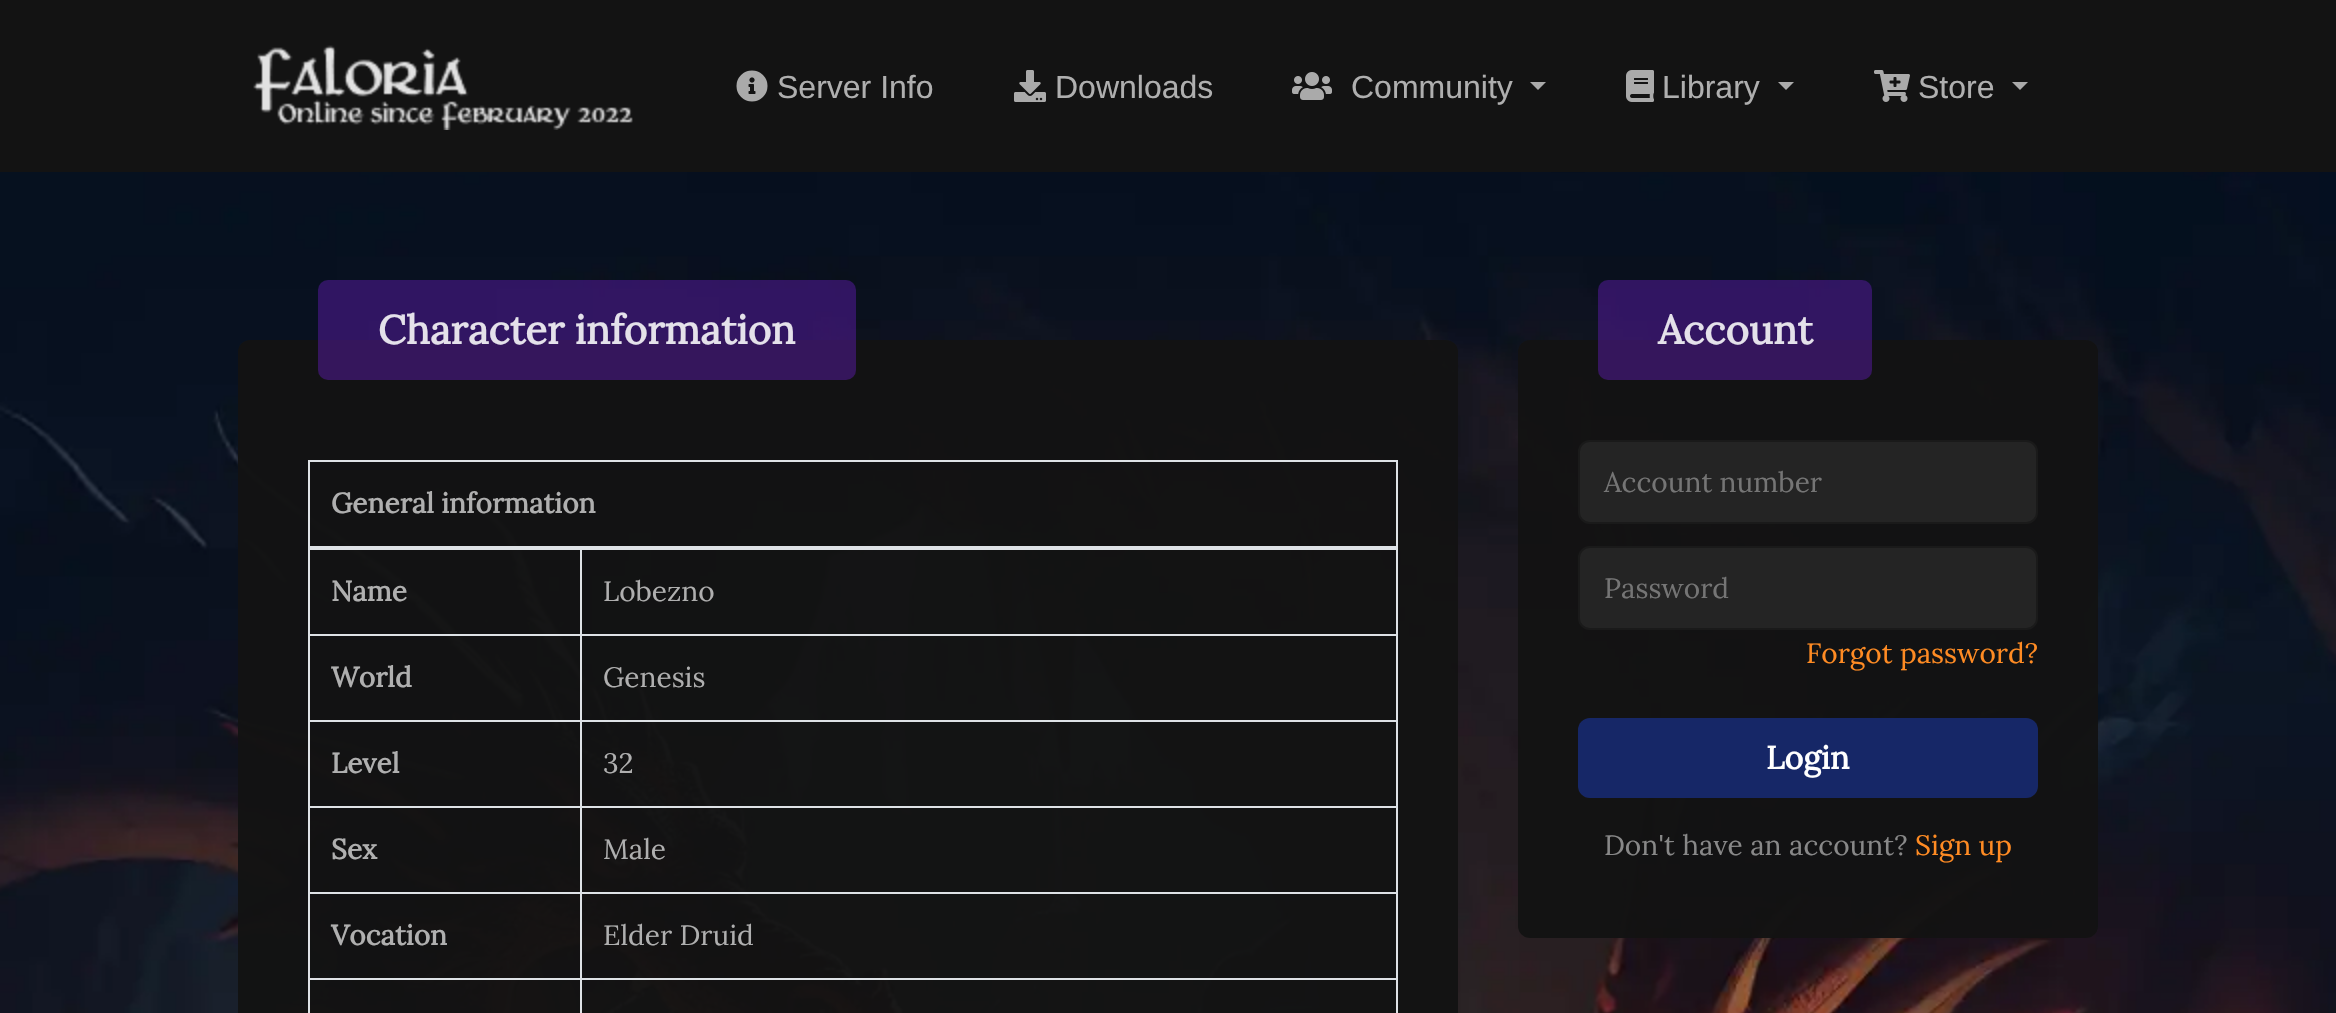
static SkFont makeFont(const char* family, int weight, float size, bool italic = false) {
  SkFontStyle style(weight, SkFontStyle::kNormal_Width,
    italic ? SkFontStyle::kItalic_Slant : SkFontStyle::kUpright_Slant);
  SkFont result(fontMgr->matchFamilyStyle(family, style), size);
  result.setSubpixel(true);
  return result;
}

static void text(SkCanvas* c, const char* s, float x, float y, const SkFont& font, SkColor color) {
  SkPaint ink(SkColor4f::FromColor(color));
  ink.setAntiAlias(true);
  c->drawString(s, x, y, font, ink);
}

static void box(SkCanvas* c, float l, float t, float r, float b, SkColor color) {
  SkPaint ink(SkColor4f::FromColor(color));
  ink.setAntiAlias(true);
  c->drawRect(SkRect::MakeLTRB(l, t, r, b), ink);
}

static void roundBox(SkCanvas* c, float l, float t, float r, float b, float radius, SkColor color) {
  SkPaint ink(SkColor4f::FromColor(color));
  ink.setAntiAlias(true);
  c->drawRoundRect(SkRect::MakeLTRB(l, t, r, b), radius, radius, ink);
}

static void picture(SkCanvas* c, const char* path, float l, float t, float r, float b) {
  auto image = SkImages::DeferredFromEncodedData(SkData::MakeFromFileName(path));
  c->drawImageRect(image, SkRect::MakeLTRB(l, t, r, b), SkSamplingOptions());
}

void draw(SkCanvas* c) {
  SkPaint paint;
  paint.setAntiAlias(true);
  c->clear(0xffffffff);
  box(c, 0, 0, 2336, 172, 0xff131313);
  picture(c, "img_01.png", 253, 45, 633, 130);
  picture(c, "img_02.png", 736, 70, 768, 102);
  SkFont face1 = makeFont("Liberation Sans", 400, 32);
  text(c, "Server Info", 777, 98, face1, 0xffafafaf);
  picture(c, "img_03.png", 1014, 70, 1046, 102);
  text(c, "Downloads", 1055, 98, face1, 0xffafafaf);
  picture(c, "img_04.png", 1292, 72, 1332, 100);
  text(c, "Community", 1351, 98, face1, 0xffafafaf);
  paint.setColor(0xffaaaaaa);
  c->drawPath(SkPathBuilder().moveTo(1530, 82).lineTo(1546, 82).lineTo(1538, 90).close().detach(), paint);
  picture(c, "img_05.png", 1626, 70, 1654, 102);
  text(c, "Library", 1662, 98, face1, 0xffafafaf);
  c->drawPath(SkPathBuilder().moveTo(1778, 82).lineTo(1794, 82).lineTo(1786, 90).close().detach(), paint);
  picture(c, "img_06.png", 1874, 70, 1910, 102);
  text(c, "Store", 1918, 98, face1, 0xffafafaf);
  c->drawPath(SkPathBuilder().moveTo(2012, 82).lineTo(2028, 82).lineTo(2020, 90).close().detach(), paint);
  picture(c, "img_07.png", 0, 172, 2336, 1013);
  roundBox(c, 238, 340, 1458, 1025, 12, 0xf5121212);
  roundBox(c, 318, 280, 856, 380, 10, 0x8753189d);
  SkFont face2 = makeFont("Lora", 700, 40);
  text(c, "Character information", 378, 344, face2, 0xffe4e1ea);
  box(c, 308, 460, 1398, 462, 0xffdee2e6);
  box(c, 1396, 460, 1398, 1013, 0xffdee2e6);
  box(c, 308, 460, 310, 1013, 0xffdee2e6);
  box(c, 580, 634, 1398, 636, 0xffdee2e6);
  box(c, 580, 720, 1398, 722, 0xffdee2e6);
  box(c, 580, 806, 1398, 808, 0xffdee2e6);
  box(c, 580, 892, 1398, 894, 0xffdee2e6);
  box(c, 580, 978, 1398, 980, 0xffdee2e6);
  box(c, 580, 978, 582, 1013, 0xffdee2e6);
  box(c, 308, 978, 582, 980, 0xffdee2e6);
  box(c, 580, 892, 582, 980, 0xffdee2e6);
  box(c, 308, 892, 582, 894, 0xffdee2e6);
  box(c, 580, 806, 582, 894, 0xffdee2e6);
  box(c, 308, 806, 582, 808, 0xffdee2e6);
  box(c, 580, 720, 582, 808, 0xffdee2e6);
  box(c, 308, 720, 582, 722, 0xffdee2e6);
  box(c, 580, 634, 582, 722, 0xffdee2e6);
  box(c, 308, 634, 582, 636, 0xffdee2e6);
  box(c, 580, 548, 582, 636, 0xffdee2e6);
  box(c, 308, 546, 1398, 550, 0xffdee2e6);
  SkFont face3 = makeFont("Lora", 700, 28);
  text(c, "General information", 331, 513, face3, 0xffafafaf);
  text(c, "Name", 331, 601, face3, 0xffafafaf);
  SkFont face4 = makeFont("Lora", 400, 28);
  text(c, "Lobezno", 603, 601, face4, 0xffafafaf);
  text(c, "World", 331, 687, face3, 0xffafafaf);
  text(c, "Genesis", 603, 687, face4, 0xffafafaf);
  text(c, "Level", 331, 773, face3, 0xffafafaf);
  text(c, "32", 603, 773, face4, 0xffafafaf);
  text(c, "Sex", 331, 859, face3, 0xffafafaf);
  text(c, "Male", 603, 859, face4, 0xffafafaf);
  text(c, "Vocation", 331, 945, face3, 0xffafafaf);
  text(c, "Elder Druid", 603, 945, face4, 0xffafafaf);
  roundBox(c, 1518, 340, 2098, 938, 12, 0xf5121212);
  roundBox(c, 1598, 280, 1872, 380, 10, 0x8753189d);
  text(c, "Account", 1658, 344, face2, 0xffe4e1ea);
  paint.setColor(0xff242424);
  c->drawRoundRect(SkRect::MakeLTRB(1579, 441, 2037, 523), 11, 11, paint);
  paint.setStyle(SkPaint::kStroke_Style);
  paint.setStrokeWidth(2);
  paint.setColor(0xff1a1a1a);
  c->drawRoundRect(SkRect::MakeLTRB(1579, 441, 2037, 523), 11, 11, paint);
  text(c, "Account number", 1604, 492, face4, 0xff757575);
  paint.setStyle(SkPaint::kFill_Style);
  paint.setColor(0xff242424);
  c->drawRoundRect(SkRect::MakeLTRB(1579, 547, 2037, 629), 11, 11, paint);
  paint.setStyle(SkPaint::kStroke_Style);
  paint.setColor(0xff1a1a1a);
  c->drawRoundRect(SkRect::MakeLTRB(1579, 547, 2037, 629), 11, 11, paint);
  text(c, "Password", 1604, 598, face4, 0xff757575);
  text(c, "Forgot password?", 1806, 663, face4, 0xffff8b23);
  roundBox(c, 1578, 718, 2038, 798, 12, 0xff162767);
  SkFont face5 = makeFont("Lora", 700, 32);
  text(c, "Login", 1766, 769, face5, 0xffffffff);
  text(c, "Don't have an account?", 1604, 855, face4, 0xff888888);
  text(c, "Sign up", 1915, 855, face4, 0xffff8b23);
}
